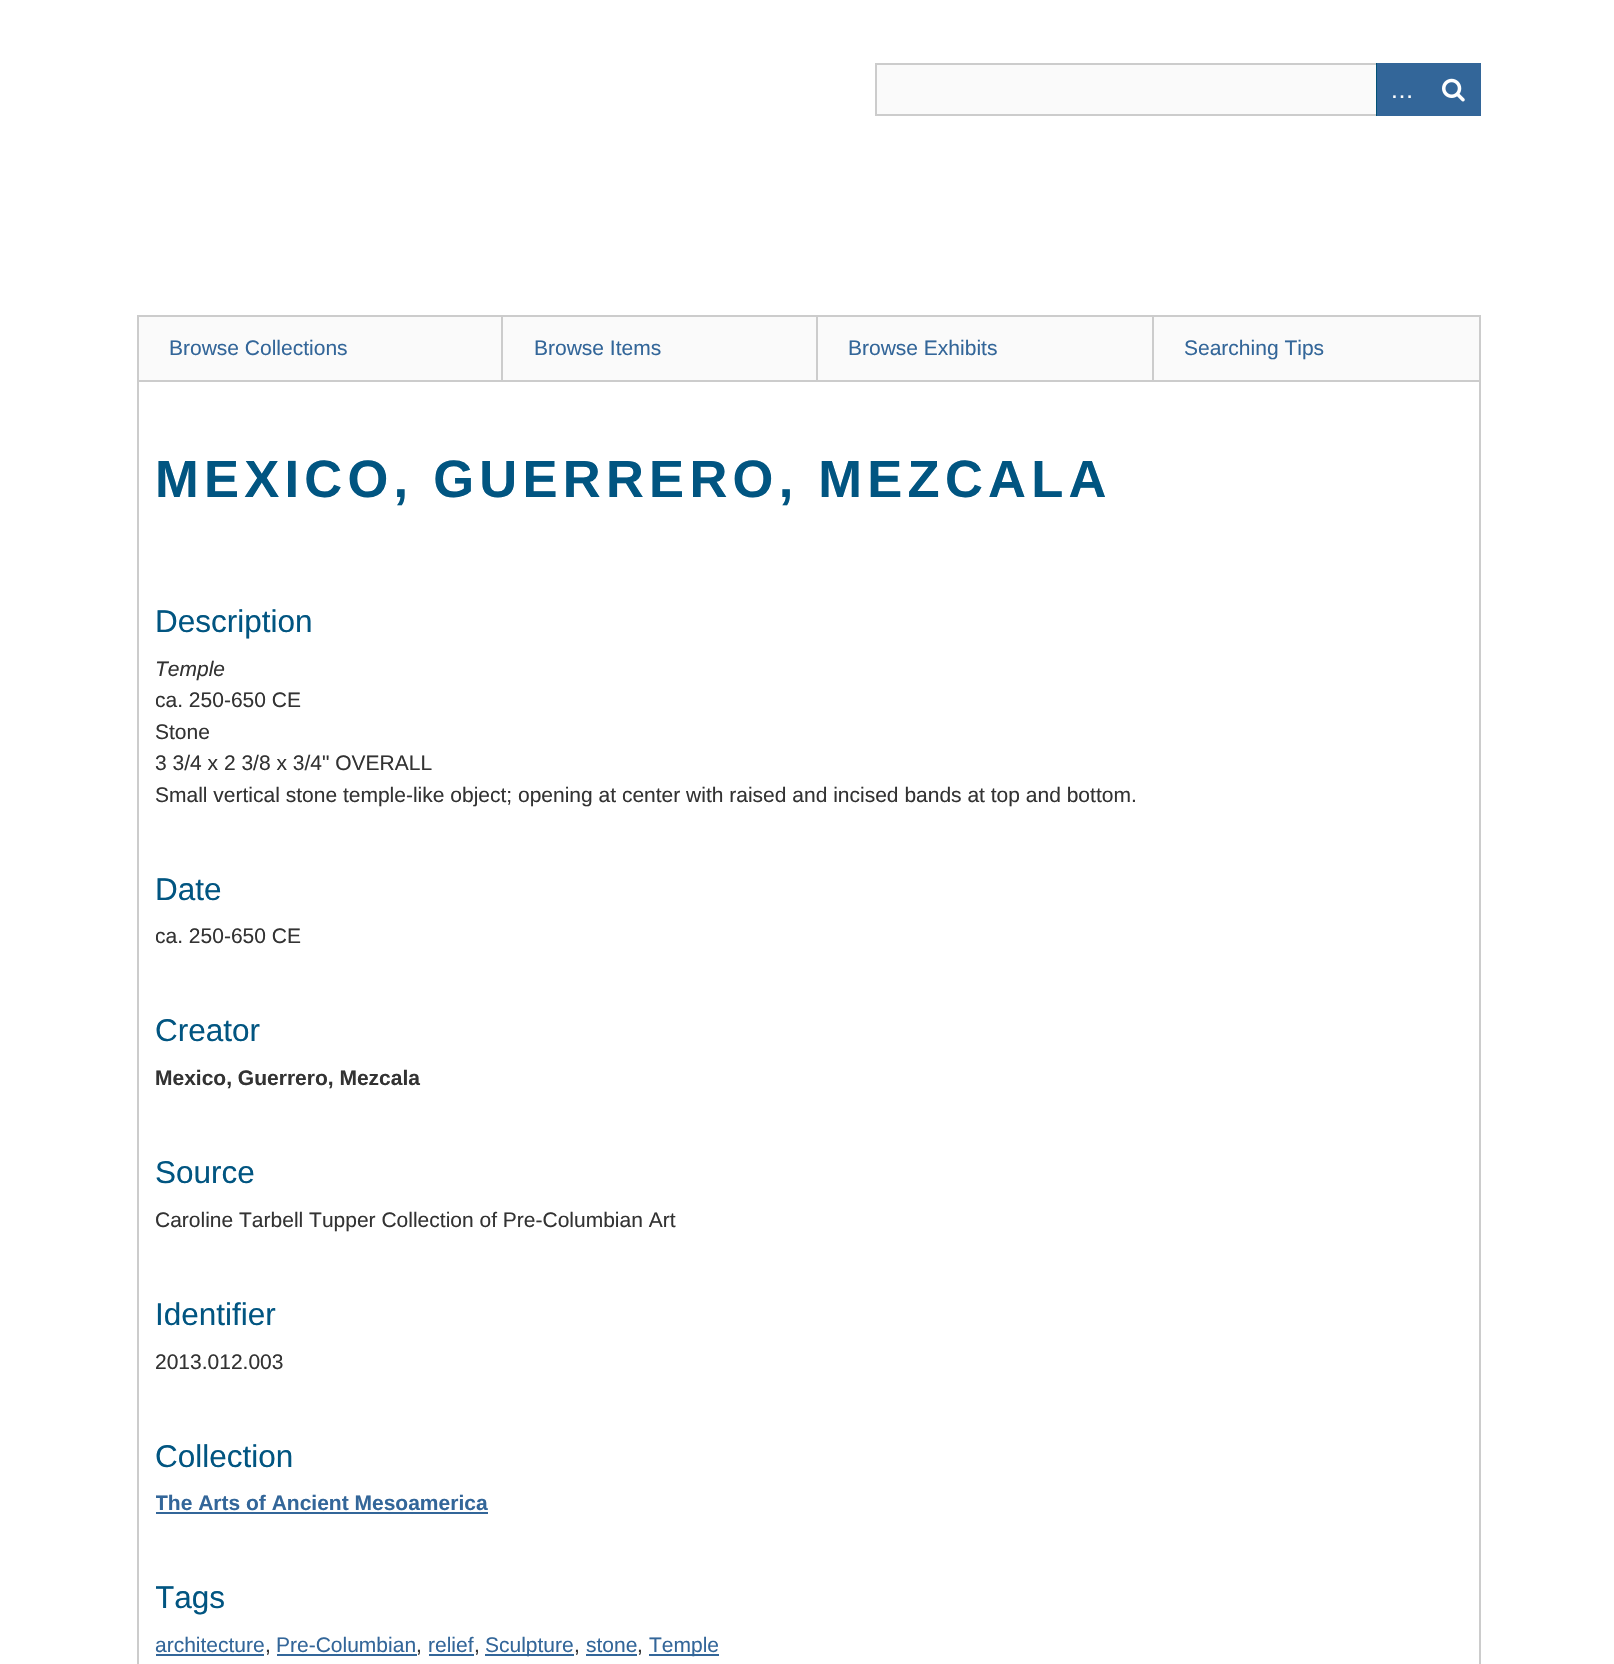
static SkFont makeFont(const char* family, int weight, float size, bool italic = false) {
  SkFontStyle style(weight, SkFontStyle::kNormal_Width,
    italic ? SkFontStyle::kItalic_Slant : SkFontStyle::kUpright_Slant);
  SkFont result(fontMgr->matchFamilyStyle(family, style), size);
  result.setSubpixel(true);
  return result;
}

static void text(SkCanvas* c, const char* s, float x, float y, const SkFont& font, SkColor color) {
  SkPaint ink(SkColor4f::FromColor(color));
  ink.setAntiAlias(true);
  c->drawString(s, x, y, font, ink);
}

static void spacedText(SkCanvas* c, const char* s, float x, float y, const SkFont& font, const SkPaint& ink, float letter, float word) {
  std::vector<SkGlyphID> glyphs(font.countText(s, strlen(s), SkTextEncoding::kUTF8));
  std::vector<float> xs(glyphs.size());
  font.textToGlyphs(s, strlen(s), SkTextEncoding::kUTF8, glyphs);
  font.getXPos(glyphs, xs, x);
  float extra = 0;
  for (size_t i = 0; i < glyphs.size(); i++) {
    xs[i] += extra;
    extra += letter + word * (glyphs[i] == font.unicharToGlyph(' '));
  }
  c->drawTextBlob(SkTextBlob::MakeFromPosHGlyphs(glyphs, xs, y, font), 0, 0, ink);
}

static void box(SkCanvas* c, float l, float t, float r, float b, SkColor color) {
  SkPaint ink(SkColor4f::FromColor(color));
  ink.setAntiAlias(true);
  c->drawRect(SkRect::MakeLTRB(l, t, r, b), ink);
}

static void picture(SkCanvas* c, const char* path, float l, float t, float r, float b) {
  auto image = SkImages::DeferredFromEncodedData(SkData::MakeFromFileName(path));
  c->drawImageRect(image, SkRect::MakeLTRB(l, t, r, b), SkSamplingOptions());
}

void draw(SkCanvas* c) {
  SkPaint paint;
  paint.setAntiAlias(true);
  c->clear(0xffffffff);
  box(c, 877, 65, 1376, 114, 0xfffafafa);
  paint.setStyle(SkPaint::kStroke_Style);
  paint.setStrokeWidth(2);
  paint.setColor(0xffcccccc);
  c->drawRect(SkRect::MakeLTRB(876, 64, 1480, 115), paint);
  box(c, 1376, 63, 1377, 116, 0xff005177);
  box(c, 1377, 63, 1481, 116, 0xff336699);
  SkFont face1 = makeFont("Liberation Sans", 400, 24);
  text(c, "…", 1390, 98, face1, 0xffffffff);
  picture(c, "img_01.png", 1442, 78, 1465, 102);
  box(c, 1479, 315, 1481, 380, 0xffcccccc);
  box(c, 139, 317, 501, 380, 0xfffafafa);
  box(c, 137, 315, 1479, 317, 0xffcccccc);
  box(c, 137, 315, 139, 380, 0xffcccccc);
  SkFont face2 = makeFont("Liberation Sans", 400, 21);
  text(c, "Browse Collections", 169, 355, face2, 0xff336699);
  box(c, 503, 317, 816, 380, 0xfffafafa);
  box(c, 501, 315, 503, 380, 0xffcccccc);
  text(c, "Browse Items", 534, 355, face2, 0xff336699);
  box(c, 818, 317, 1152, 380, 0xfffafafa);
  box(c, 816, 315, 818, 380, 0xffcccccc);
  text(c, "Browse Exhibits", 848, 355, face2, 0xff336699);
  box(c, 1154, 317, 1479, 380, 0xfffafafa);
  box(c, 1152, 315, 1154, 380, 0xffcccccc);
  text(c, "Searching Tips", 1184, 355, face2, 0xff336699);
  c->drawRect(SkRect::MakeLTRB(138, 381, 1480, 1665), paint);
  SkFont face3 = makeFont("Liberation Sans", 700, 52.5f);
  paint.setStyle(SkPaint::kFill_Style);
  paint.setColor(0xff015581);
  spacedText(c, "MEXICO, GUERRERO, MEZCALA", 155, 497, face3, paint, 5.25f, 0);
  SkFont face4 = makeFont("Liberation Sans", 400, 31.5f);
  text(c, "Description", 155, 632, face4, 0xff015581);
  SkFont face5 = makeFont("Liberation Sans", 400, 21, true);
  text(c, "Temple", 155, 676, face5, 0xff333333);
  c->save();
  c->clipRect(SkRect::MakeLTRB(156, 574, 1461, 810));
  text(c, "ca. 250-650 CE", 155, 707, face2, 0xff333333);
  c->restore();
  text(c, "Stone", 155, 739, face2, 0xff333333);
  text(c, "3 3/4 x 2 3/8 x 3/4\" OVERALL", 155, 770, face2, 0xff333333);
  text(c, "Small vertical stone temple-like object; opening at center with raised and incised bands at top and bottom.", 155, 802, face2, 0xff333333);
  text(c, "Date", 155, 900, face4, 0xff015581);
  c->save();
  c->clipRect(SkRect::MakeLTRB(156, 842, 1461, 952));
  text(c, "ca. 250-650 CE", 155, 943, face2, 0xff333333);
  c->restore();
  text(c, "Creator", 155, 1041, face4, 0xff015581);
  SkFont face6 = makeFont("Liberation Sans", 700, 21);
  text(c, "Mexico, Guerrero, Mezcala", 155, 1085, face6, 0xff333333);
  text(c, "Source", 155, 1183, face4, 0xff015581);
  text(c, "Caroline Tarbell Tupper Collection of Pre-Columbian Art", 155, 1227, face2, 0xff333333);
  text(c, "Identifier", 155, 1325, face4, 0xff015581);
  text(c, "2013.012.003", 155, 1369, face2, 0xff333333);
  text(c, "Collection", 155, 1467, face4, 0xff015581);
  c->save();
  c->clipRect(SkRect::MakeLTRB(156, 1409, 1461, 1519));
  text(c, "The Arts of Ancient Mesoamerica", 155, 1510, face6, 0xff336699);
  c->restore();
  box(c, 156, 1512, 488, 1514, 0xff336699);
  c->save();
  c->clipRect(SkRect::MakeLTRB(156, 1551, 1461, 1661));
  text(c, "Tags", 155, 1608, face4, 0xff015581);
  c->restore();
  text(c, "architecture", 155, 1652, face2, 0xff336699);
  box(c, 156, 1654, 264, 1656, 0xff336699);
  text(c, ",", 265, 1652, face2, 0xff333333);
  text(c, "Pre-Columbian", 276, 1652, face2, 0xff336699);
  box(c, 277, 1654, 417, 1656, 0xff336699);
  text(c, ",", 416, 1652, face2, 0xff333333);
  text(c, "relief", 428, 1652, face2, 0xff336699);
  box(c, 429, 1654, 474, 1656, 0xff336699);
  text(c, ",", 474, 1652, face2, 0xff333333);
  box(c, 485, 1654, 574, 1656, 0xff336699);
  text(c, "Sculpture", 485, 1652, face2, 0xff336699);
  text(c, ",", 574, 1652, face2, 0xff333333);
  text(c, "stone", 586, 1652, face2, 0xff336699);
  box(c, 586, 1654, 637, 1656, 0xff336699);
  text(c, ",", 637, 1652, face2, 0xff333333);
  box(c, 649, 1654, 719, 1656, 0xff336699);
  text(c, "Temple", 649, 1652, face2, 0xff336699);
}
